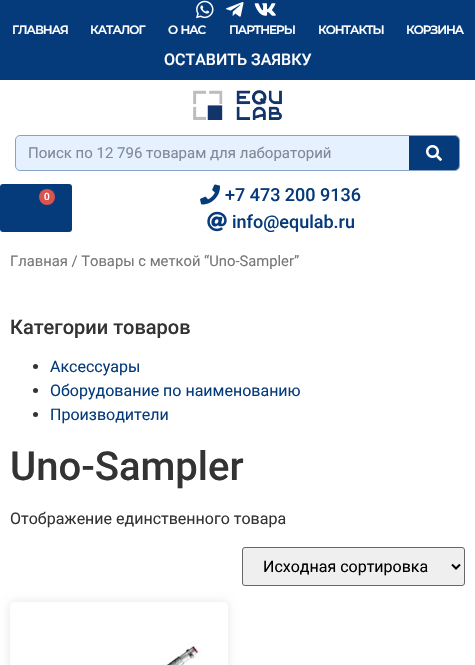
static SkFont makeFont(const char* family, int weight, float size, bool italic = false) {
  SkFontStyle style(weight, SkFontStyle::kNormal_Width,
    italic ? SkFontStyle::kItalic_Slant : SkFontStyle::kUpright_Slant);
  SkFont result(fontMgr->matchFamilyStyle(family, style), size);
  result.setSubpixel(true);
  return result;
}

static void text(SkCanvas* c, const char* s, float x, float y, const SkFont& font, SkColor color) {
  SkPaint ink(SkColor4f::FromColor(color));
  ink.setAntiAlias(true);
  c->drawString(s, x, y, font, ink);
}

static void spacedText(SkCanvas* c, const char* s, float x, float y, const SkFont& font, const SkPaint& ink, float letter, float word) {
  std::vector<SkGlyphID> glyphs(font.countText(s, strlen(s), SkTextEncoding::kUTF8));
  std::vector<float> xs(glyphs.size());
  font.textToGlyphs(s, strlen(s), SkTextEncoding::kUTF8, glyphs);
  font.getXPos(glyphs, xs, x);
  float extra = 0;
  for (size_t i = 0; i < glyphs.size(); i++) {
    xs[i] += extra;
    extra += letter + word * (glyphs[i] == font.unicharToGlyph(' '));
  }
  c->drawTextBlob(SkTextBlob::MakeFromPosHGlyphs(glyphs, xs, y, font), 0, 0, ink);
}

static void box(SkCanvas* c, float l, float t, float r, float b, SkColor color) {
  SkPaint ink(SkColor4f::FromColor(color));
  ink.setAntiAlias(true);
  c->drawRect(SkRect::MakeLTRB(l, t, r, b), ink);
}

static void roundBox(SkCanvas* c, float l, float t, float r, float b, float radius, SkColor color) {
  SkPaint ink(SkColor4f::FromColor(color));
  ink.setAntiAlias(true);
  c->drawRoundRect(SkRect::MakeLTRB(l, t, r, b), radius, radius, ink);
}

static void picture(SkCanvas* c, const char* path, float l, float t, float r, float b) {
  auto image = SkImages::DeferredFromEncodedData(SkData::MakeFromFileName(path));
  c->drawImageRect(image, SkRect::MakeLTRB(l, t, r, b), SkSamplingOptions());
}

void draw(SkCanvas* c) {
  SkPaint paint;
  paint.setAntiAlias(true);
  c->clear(0xffffffff);
  box(c, 0, 0, 475, 80, 0xff063b7b);
  picture(c, "img_01.png", 196, 0, 214, 19);
  picture(c, "img_02.png", 226, 2, 244, 17);
  picture(c, "img_03.png", 254, 3, 276, 16);
  SkFont face1 = makeFont("Montserrat", 600, 12);
  paint.setColor(0xffffffff);
  spacedText(c, "ГЛАВНАЯ", 12, 34, face1, paint, -1, 0);
  spacedText(c, "КАТАЛОГ", 90, 34, face1, paint, -1, 0);
  spacedText(c, "О НАС", 168, 34, face1, paint, -1, 1);
  spacedText(c, "ПАРТНЕРЫ", 229, 34, face1, paint, -1, 0);
  spacedText(c, "КОНТАКТЫ", 318, 34, face1, paint, -1, 0);
  spacedText(c, "КОРЗИНА", 406, 34, face1, paint, -1, 0);
  SkFont face2 = makeFont("Roboto", 500, 16);
  text(c, "ОСТАВИТЬ ЗАЯВКУ", 164, 65, face2, 0xffffffff);
  picture(c, "img_04.png", 193, 90, 282, 120);
  paint.setColor(0xffe6f1ff);
  c->drawRoundRect(SkRect::MakeLTRB(15.5f, 135.5f, 459.5f, 170.5f), 4.5f, 4.5f, paint);
  paint.setStyle(SkPaint::kStroke_Style);
  paint.setStrokeWidth(1);
  paint.setColor(0xff85a3c8);
  c->drawRoundRect(SkRect::MakeLTRB(15.5f, 135.5f, 459.5f, 170.5f), 4.5f, 4.5f, paint);
  SkFont face3 = makeFont("Roboto", 400, 15);
  text(c, "Поиск по 12 796 товарам для лабораторий", 28, 158, face3, 0xff828993);
  paint.setStyle(SkPaint::kFill_Style);
  paint.setColor(0xff063b7b);
  c->drawPath(SkPathBuilder().moveTo(409, 136).lineTo(455, 136).cubicTo(457, 136, 459, 138, 459, 140).lineTo(459, 166).cubicTo(459, 168, 457, 170, 455, 170).lineTo(409, 170).close().detach(), paint);
  picture(c, "img_05.png", 426, 145, 442, 161);
  roundBox(c, 0, 184, 72, 232, 3, 0xff063b7b);
  paint.setColor(0xffd9534f);
  c->drawCircle(47, 197, 8, paint);
  SkFont face4 = makeFont("Roboto", 500, 10);
  text(c, "0", 44, 200, face4, 0xffffffff);
  picture(c, "img_06.png", 200, 184, 220, 205);
  SkFont face5 = makeFont("Roboto", 500, 18);
  text(c, "+7 473 200 9136", 225, 201, face5, 0xff063b7b);
  picture(c, "img_07.png", 207, 211, 227, 232);
  text(c, "info@equlab.ru", 232, 228, face5, 0xff063b7b);
  SkFont face6 = makeFont("Roboto", 400, 14.75f);
  text(c, "Главная / Товары с меткой “Uno-Sampler”", 10, 266, face6, 0xff767676);
  SkFont face7 = makeFont("Roboto", 500, 20);
  text(c, "Категории товаров", 10, 334, face7, 0xff333333);
  paint.setColor(0xff333333);
  c->drawCircle(35.5f, 366.5f, 2.5f, paint);
  SkFont face8 = makeFont("Roboto", 400, 16);
  text(c, "Аксессуары", 50, 372, face8, 0xff063b7b);
  c->drawCircle(35.5f, 390.5f, 2.5f, paint);
  text(c, "Оборудование по наименованию", 50, 396, face8, 0xff063b7b);
  c->drawCircle(35.5f, 414.5f, 2.5f, paint);
  text(c, "Производители", 50, 420, face8, 0xff063b7b);
  SkFont face9 = makeFont("Roboto", 500, 40);
  text(c, "Uno-Sampler", 10, 480, face9, 0xff333333);
  text(c, "Отображение единственного товара", 10, 524, face8, 0xff333333);
  paint.setColor(0xffefefef);
  c->drawRoundRect(SkRect::MakeLTRB(242.5f, 547.5f, 464.5f, 585.5f), 2.5f, 2.5f, paint);
  paint.setStyle(SkPaint::kStroke_Style);
  paint.setColor(0xff666666);
  c->drawRoundRect(SkRect::MakeLTRB(242.5f, 547.5f, 464.5f, 585.5f), 2.5f, 2.5f, paint);
  paint.setStrokeWidth(2);
  paint.setColor(0xff000000);
  c->drawPath(SkPathBuilder().moveTo(452, 564.5f).lineTo(456, 568.5f).lineTo(460, 564.5f).detach(), paint);
  text(c, "Исходная сортировка", 263, 572, face8, 0xff000000);
  paint.setStyle(SkPaint::kFill_Style);
  paint.setColor(0x1a000000);
  paint.setMaskFilter(SkMaskFilter::MakeBlur(kNormal_SkBlurStyle, 5));
  c->drawRoundRect(SkRect::MakeLTRB(10, 602, 228, 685), 5, 5, paint);
  paint.setMaskFilter(nullptr);
  roundBox(c, 10, 602, 228, 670, 5, 0xffffffff);
  picture(c, "img_08.png", 162, 641, 202, 665);
}
